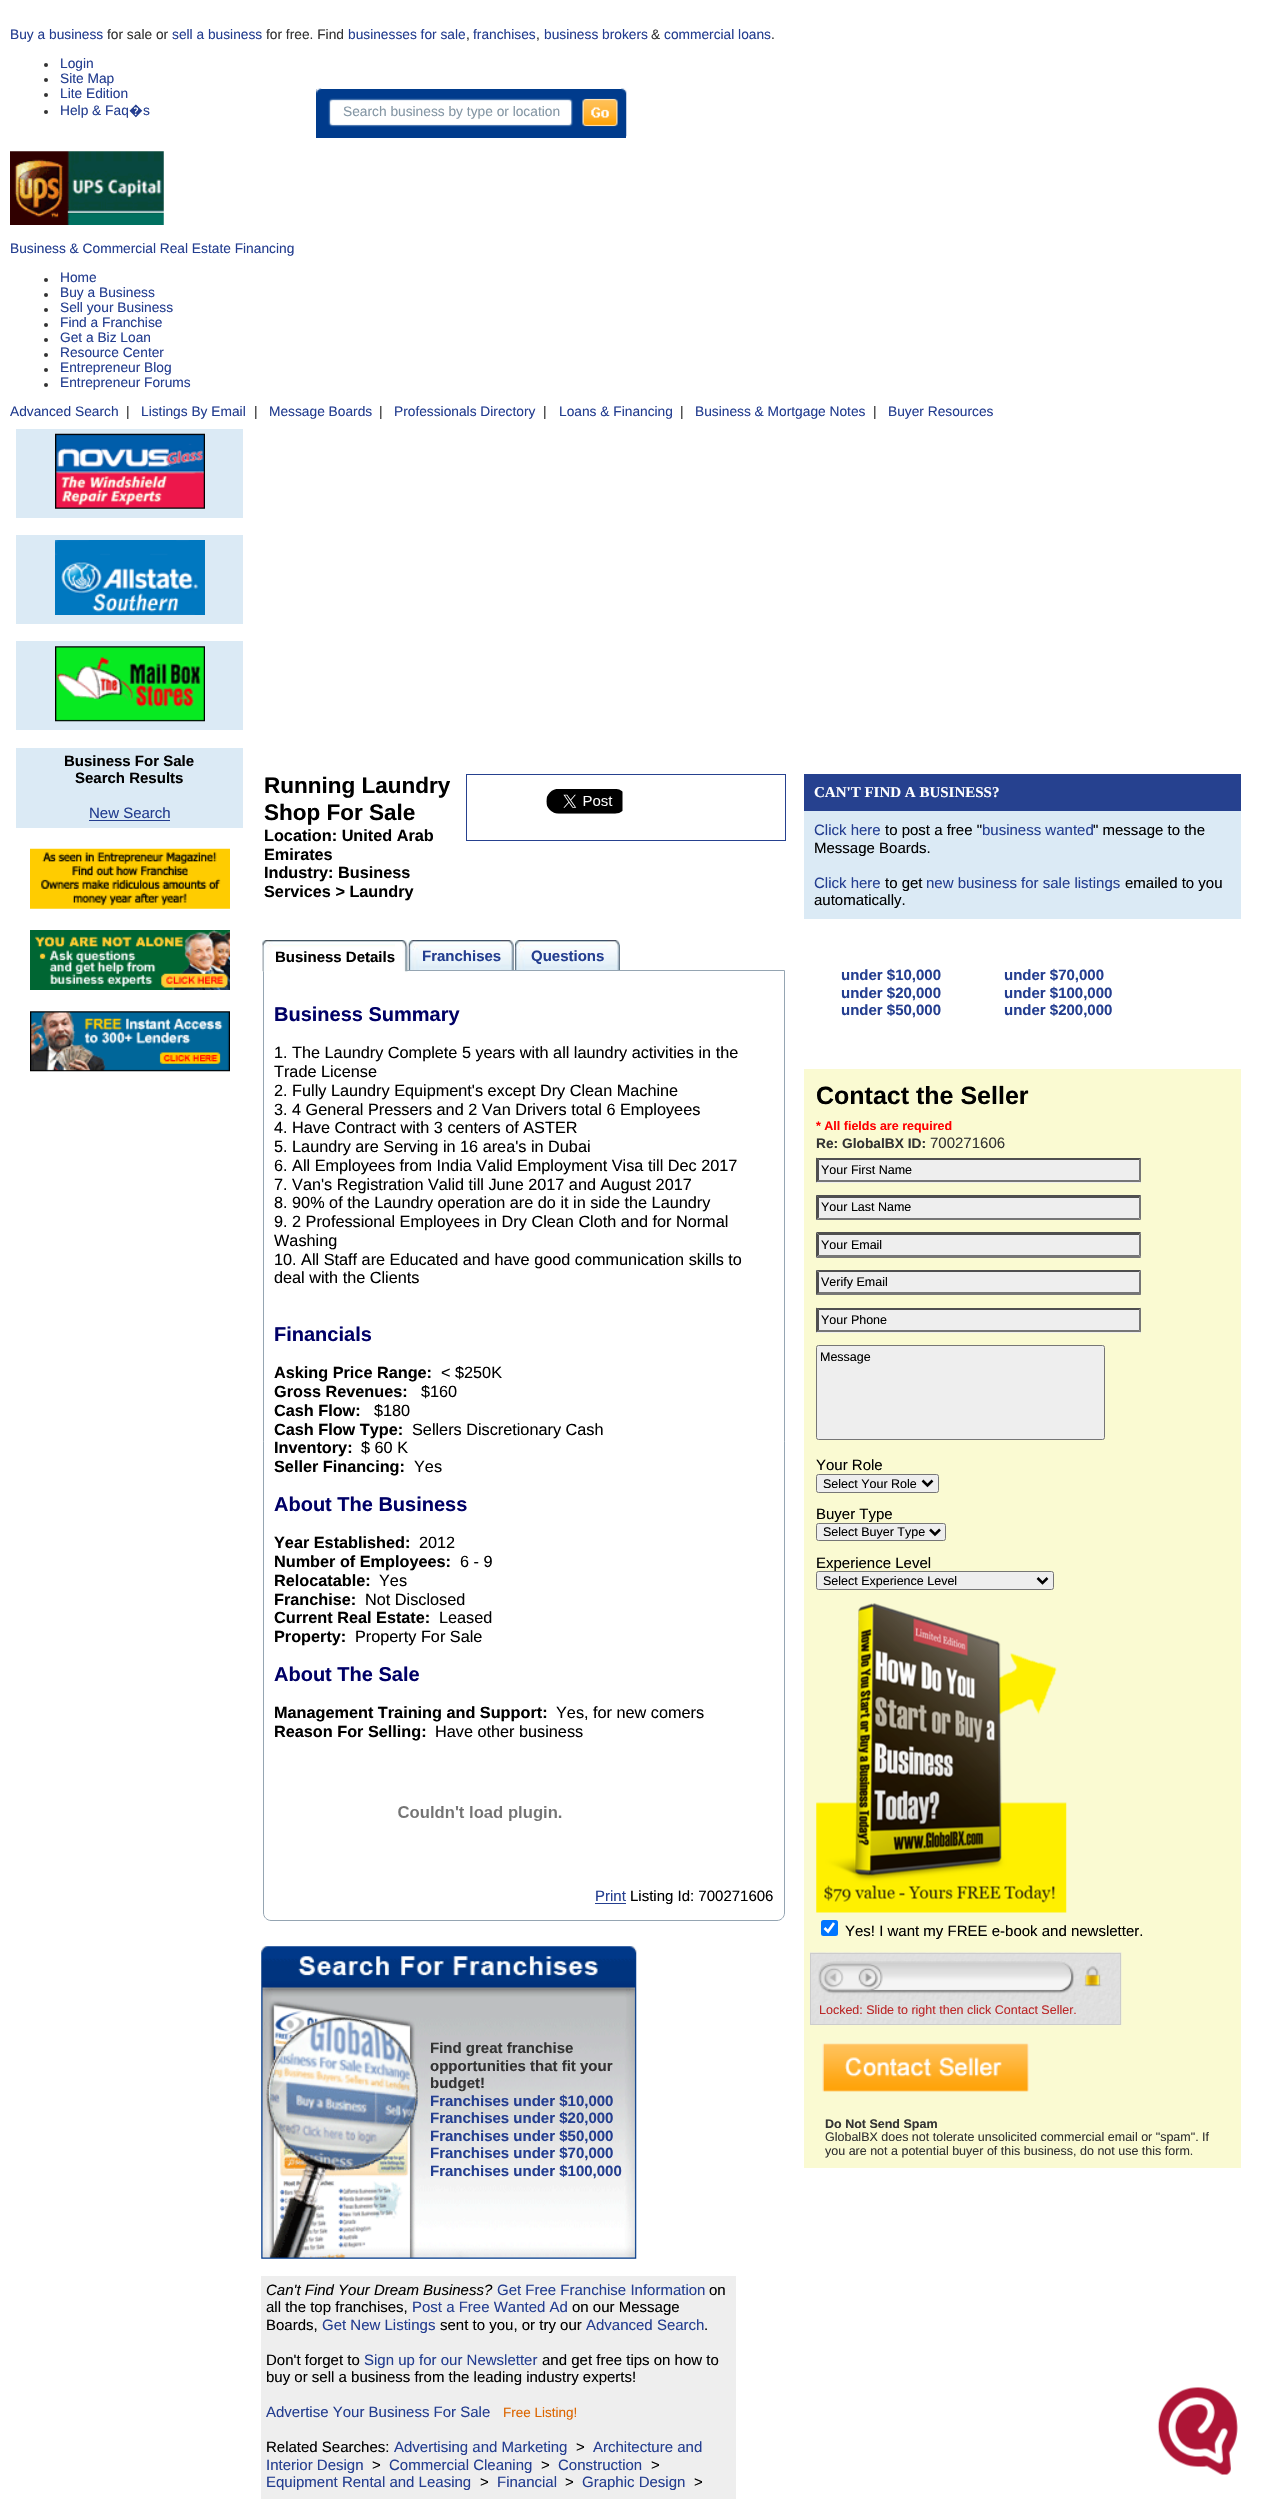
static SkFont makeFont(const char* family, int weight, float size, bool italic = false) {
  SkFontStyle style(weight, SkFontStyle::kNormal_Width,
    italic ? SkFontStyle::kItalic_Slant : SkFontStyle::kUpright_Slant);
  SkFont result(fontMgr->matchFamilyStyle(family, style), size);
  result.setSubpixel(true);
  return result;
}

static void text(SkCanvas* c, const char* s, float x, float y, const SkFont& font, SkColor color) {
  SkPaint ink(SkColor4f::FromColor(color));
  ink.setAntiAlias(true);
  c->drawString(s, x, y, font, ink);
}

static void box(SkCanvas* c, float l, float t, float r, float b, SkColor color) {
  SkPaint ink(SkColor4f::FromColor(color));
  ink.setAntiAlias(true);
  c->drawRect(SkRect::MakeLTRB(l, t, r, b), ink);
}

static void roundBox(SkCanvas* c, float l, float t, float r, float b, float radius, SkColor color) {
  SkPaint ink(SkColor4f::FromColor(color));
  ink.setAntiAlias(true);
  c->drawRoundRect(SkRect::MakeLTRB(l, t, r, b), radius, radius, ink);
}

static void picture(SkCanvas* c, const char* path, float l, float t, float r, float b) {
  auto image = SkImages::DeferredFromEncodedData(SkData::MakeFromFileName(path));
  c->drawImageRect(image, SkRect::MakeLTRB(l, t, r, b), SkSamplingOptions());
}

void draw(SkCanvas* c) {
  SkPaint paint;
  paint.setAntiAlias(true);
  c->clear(0xffffffff);
  SkFont face1 = makeFont("Liberation Sans", 400, 13.75f);
  text(c, "Buy a business", 10, 39, face1, 0xff243e90);
  text(c, "for sale or", 107, 39, face1, 0xff333333);
  text(c, "sell a business", 172, 39, face1, 0xff243e90);
  text(c, "for free. Find", 266, 39, face1, 0xff333333);
  text(c, "businesses for sale", 348, 39, face1, 0xff243e90);
  text(c, ",", 466, 39, face1, 0xff333333);
  text(c, "franchises", 473, 39, face1, 0xff243e90);
  text(c, ",", 536, 39, face1, 0xff333333);
  text(c, "business brokers", 544, 39, face1, 0xff243e90);
  text(c, "&", 651, 39, face1, 0xff333333);
  text(c, "commercial loans", 664, 39, face1, 0xff243e90);
  text(c, ".", 771, 39, face1, 0xff333333);
  paint.setColor(0xff333333);
  c->drawCircle(46, 65, 2, paint);
  text(c, "Login", 60, 68, face1, 0xff243e90);
  c->drawCircle(46, 80, 2, paint);
  text(c, "Site Map", 60, 83, face1, 0xff243e90);
  c->drawCircle(46, 95, 2, paint);
  text(c, "Lite Edition", 60, 98, face1, 0xff243e90);
  c->drawCircle(46, 112, 2, paint);
  text(c, "Help & Faq", 60, 115, face1, 0xff243e90);
  SkFont face2 = makeFont("Noto Sans", 400, 13.75f);
  text(c, "�", 129, 115, face2, 0xff243e90);
  text(c, "s", 143, 115, face1, 0xff243e90);
  picture(c, "img_01.png", 10, 151, 164, 225);
  text(c, "Business & Commercial Real Estate Financing", 10, 253, face1, 0xff243e90);
  c->drawCircle(46, 280, 2, paint);
  text(c, "Home", 60, 282, face1, 0xff243e90);
  c->drawCircle(46, 295, 2, paint);
  text(c, "Buy a Business", 60, 297, face1, 0xff243e90);
  c->drawCircle(46, 310, 2, paint);
  text(c, "Sell your Business", 60, 312, face1, 0xff243e90);
  c->drawCircle(46, 325, 2, paint);
  text(c, "Find a Franchise", 60, 327, face1, 0xff243e90);
  c->drawCircle(46, 340, 2, paint);
  text(c, "Get a Biz Loan", 60, 342, face1, 0xff243e90);
  c->drawCircle(46, 355, 2, paint);
  text(c, "Resource Center", 60, 357, face1, 0xff243e90);
  c->drawCircle(46, 370, 2, paint);
  text(c, "Entrepreneur Blog", 60, 372, face1, 0xff243e90);
  c->drawCircle(46, 385, 2, paint);
  text(c, "Entrepreneur Forums", 60, 387, face1, 0xff243e90);
  text(c, "Advanced Search", 10, 416, face1, 0xff243e90);
  text(c, "|", 126, 416, face1, 0xff333333);
  text(c, "Listings By Email", 141, 416, face1, 0xff243e90);
  text(c, "|", 254, 416, face1, 0xff333333);
  text(c, "Message Boards", 269, 416, face1, 0xff243e90);
  text(c, "|", 379, 416, face1, 0xff333333);
  text(c, "Professionals Directory", 394, 416, face1, 0xff243e90);
  text(c, "|", 543, 416, face1, 0xff333333);
  text(c, "Loans & Financing", 559, 416, face1, 0xff243e90);
  text(c, "|", 680, 416, face1, 0xff333333);
  text(c, "Business & Mortgage Notes", 695, 416, face1, 0xff243e90);
  text(c, "|", 873, 416, face1, 0xff333333);
  text(c, "Buyer Resources", 888, 416, face1, 0xff243e90);
  box(c, 316, 89, 626, 138, 0xff003b8c);
  picture(c, "img_02.png", 621, 88, 627, 137);
  picture(c, "img_03.png", 316, 88, 322, 94);
  picture(c, "img_04.png", 328, 98, 573, 127);
  text(c, "Search business by type or location", 343, 116, face1, 0xff8597a5);
  picture(c, "img_05.png", 582, 98, 618, 127);
  box(c, 16, 429, 243, 518, 0xffdbeaf5);
  picture(c, "img_06.png", 55, 433, 205, 509);
  box(c, 16, 535, 243, 624, 0xffdbeaf5);
  picture(c, "img_07.png", 55, 540, 205, 615);
  box(c, 16, 641, 243, 730, 0xffdbeaf5);
  picture(c, "img_08.png", 55, 646, 205, 722);
  box(c, 16, 748, 243, 828, 0xffdbeaf5);
  SkFont face3 = makeFont("Liberation Sans", 700, 15);
  text(c, "Business For Sale", 64, 766, face3, 0xff000000);
  text(c, "Search Results", 75, 783, face3, 0xff000000);
  SkFont face4 = makeFont("Liberation Sans", 400, 15);
  text(c, "New Search", 89, 818, face4, 0xff243e90);
  box(c, 89, 820, 170, 821, 0xff243e90);
  picture(c, "img_09.png", 30, 848, 230, 909);
  picture(c, "img_10.png", 30, 930, 230, 990);
  picture(c, "img_11.png", 30, 1011, 230, 1072);
  SkFont face5 = makeFont("Liberation Sans", 700, 22.5f);
  text(c, "Running Laundry", 264, 793, face5, 0xff000000);
  text(c, "Shop For Sale", 264, 820, face5, 0xff000000);
  SkFont face6 = makeFont("Liberation Sans", 700, 16.25f);
  text(c, "Location: United Arab", 264, 841, face6, 0xff000000);
  text(c, "Emirates", 264, 860, face6, 0xff000000);
  text(c, "Industry: Business", 264, 878, face6, 0xff000000);
  text(c, "Services > Laundry", 264, 897, face6, 0xff000000);
  paint.setStyle(SkPaint::kStroke_Style);
  paint.setStrokeWidth(1);
  paint.setColor(0xff26418f);
  c->drawRect(SkRect::MakeLTRB(466.5f, 774.5f, 785.5f, 840.5f), paint);
  picture(c, "img_12.png", 546, 789, 623, 814);
  paint.setColor(0xff95a5b2);
  c->drawPath(SkPathBuilder().moveTo(263.5f, 970.5f).lineTo(784.5f, 970.5f).lineTo(784.5f, 1913).cubicTo(784.5f, 1917, 781, 1920.5f, 777, 1920.5f).lineTo(271, 1920.5f).cubicTo(267, 1920.5f, 263.5f, 1917, 263.5f, 1913).close().detach(), paint);
  picture(c, "img_13.png", 263, 940, 408, 972);
  picture(c, "img_14.png", 262, 940, 395, 972);
  text(c, "Business Details", 275, 962, face3, 0xff000000);
  picture(c, "img_15.png", 501, 940, 514, 970);
  picture(c, "img_16.png", 408, 940, 501, 970);
  text(c, "Franchises", 422, 961, face3, 0xff243e90);
  picture(c, "img_17.png", 607, 940, 620, 970);
  picture(c, "img_18.png", 515, 940, 608, 970);
  text(c, "Questions", 531, 961, face3, 0xff243e90);
  SkFont face7 = makeFont("Liberation Sans", 700, 20);
  text(c, "Business Summary", 274, 1021, face7, 0xff000066);
  SkFont face8 = makeFont("Liberation Sans", 400, 16.25f);
  text(c, "1. The Laundry Complete 5 years with all laundry activities in the", 274, 1058, face8, 0xff000000);
  text(c, "Trade License", 274, 1077, face8, 0xff000000);
  text(c, "2. Fully Laundry Equipment's except Dry Clean Machine", 274, 1096, face8, 0xff000000);
  text(c, "3. 4 General Pressers and 2 Van Drivers total 6 Employees", 274, 1115, face8, 0xff000000);
  text(c, "4. Have Contract with 3 centers of ASTER", 274, 1133, face8, 0xff000000);
  text(c, "5. Laundry are Serving in 16 area's in Dubai", 274, 1152, face8, 0xff000000);
  text(c, "6. All Employees from India Valid Employment Visa till Dec 2017", 274, 1171, face8, 0xff000000);
  text(c, "7. Van's Registration Valid till June 2017 and August 2017", 274, 1190, face8, 0xff000000);
  text(c, "8. 90% of the Laundry operation are do it in side the Laundry", 274, 1208, face8, 0xff000000);
  text(c, "9. 2 Professional Employees in Dry Clean Cloth and for Normal", 274, 1227, face8, 0xff000000);
  text(c, "Washing", 274, 1246, face8, 0xff000000);
  text(c, "10. All Staff are Educated and have good communication skills to", 274, 1265, face8, 0xff000000);
  text(c, "deal with the Clients", 274, 1283, face8, 0xff000000);
  text(c, "Financials", 274, 1341, face7, 0xff000066);
  text(c, "Asking Price Range:", 274, 1378, face6, 0xff000000);
  text(c, "< $250K", 441, 1378, face8, 0xff000000);
  text(c, "Gross Revenues:", 274, 1397, face6, 0xff000000);
  text(c, "$160", 421, 1397, face8, 0xff000000);
  text(c, "Cash Flow:", 274, 1416, face6, 0xff000000);
  text(c, "$180", 374, 1416, face8, 0xff000000);
  text(c, "Cash Flow Type:", 274, 1435, face6, 0xff000000);
  text(c, "Sellers Discretionary Cash", 412, 1435, face8, 0xff000000);
  text(c, "Inventory:", 274, 1453, face6, 0xff000000);
  text(c, "$ 60 K", 361, 1453, face8, 0xff000000);
  text(c, "Seller Financing:", 274, 1472, face6, 0xff000000);
  text(c, "Yes", 414, 1472, face8, 0xff000000);
  text(c, "About The Business", 274, 1511, face7, 0xff000066);
  text(c, "Year Established:", 274, 1548, face6, 0xff000000);
  text(c, "2012", 419, 1548, face8, 0xff000000);
  text(c, "Number of Employees:", 274, 1567, face6, 0xff000000);
  text(c, "6 - 9", 460, 1567, face8, 0xff000000);
  text(c, "Relocatable:", 274, 1586, face6, 0xff000000);
  text(c, "Yes", 379, 1586, face8, 0xff000000);
  text(c, "Franchise:", 274, 1605, face6, 0xff000000);
  text(c, "Not Disclosed", 365, 1605, face8, 0xff000000);
  text(c, "Current Real Estate:", 274, 1623, face6, 0xff000000);
  text(c, "Leased", 439, 1623, face8, 0xff000000);
  text(c, "Property:", 274, 1642, face6, 0xff000000);
  text(c, "Property For Sale", 355, 1642, face8, 0xff000000);
  text(c, "About The Sale", 274, 1681, face7, 0xff000066);
  text(c, "Management Training and Support:", 274, 1718, face6, 0xff000000);
  text(c, "Yes, for new comers", 556, 1718, face8, 0xff000000);
  text(c, "Reason For Selling:", 274, 1737, face6, 0xff000000);
  text(c, "Have other business", 435, 1737, face8, 0xff000000);
  picture(c, "img_19.png", 398, 1806, 562, 1821);
  text(c, "Print", 595, 1901, face4, 0xff243e90);
  box(c, 595, 1903, 626, 1904, 0xff243e90);
  text(c, "Listing Id: 700271606", 630, 1901, face4, 0xff000000);
  picture(c, "img_20.png", 261, 1946, 637, 2259);
  text(c, "Find great franchise", 430, 2053, face3, 0xff333333);
  text(c, "opportunities that fit your", 430, 2071, face3, 0xff333333);
  text(c, "budget!", 430, 2088, face3, 0xff333333);
  text(c, "Franchises under $10,000", 430, 2106, face3, 0xff243e90);
  text(c, "Franchises under $20,000", 430, 2123, face3, 0xff243e90);
  text(c, "Franchises under $50,000", 430, 2141, face3, 0xff243e90);
  text(c, "Franchises under $70,000", 430, 2158, face3, 0xff243e90);
  text(c, "Franchises under $100,000", 430, 2176, face3, 0xff243e90);
  box(c, 261, 2276, 736, 2499, 0xffeeeeee);
  SkFont face9 = makeFont("Liberation Sans", 400, 15, true);
  text(c, "Can't Find Your Dream Business?", 266, 2295, face9, 0xff000000);
  text(c, "Get Free Franchise Information", 497, 2295, face4, 0xff243e90);
  text(c, "on", 709, 2295, face4, 0xff000000);
  text(c, "all the top franchises,", 266, 2312, face4, 0xff000000);
  text(c, "Post a Free Wanted Ad", 412, 2312, face4, 0xff243e90);
  text(c, "on our Message", 572, 2312, face4, 0xff000000);
  text(c, "Boards,", 266, 2330, face4, 0xff000000);
  text(c, "Get New Listings", 322, 2330, face4, 0xff243e90);
  text(c, "sent to you, or try our", 440, 2330, face4, 0xff000000);
  text(c, "Advanced Search", 586, 2330, face4, 0xff243e90);
  text(c, ".", 704, 2330, face4, 0xff000000);
  text(c, "Don't forget to", 266, 2365, face4, 0xff000000);
  text(c, "Sign up for our Newsletter", 364, 2365, face4, 0xff243e90);
  text(c, "and get free tips on how to", 542, 2365, face4, 0xff000000);
  text(c, "buy or sell a business from the leading industry experts!", 266, 2382, face4, 0xff000000);
  text(c, "Advertise Your Business For Sale", 266, 2417, face4, 0xff243e90);
  SkFont face10 = makeFont("Liberation Sans", 400, 13.5f);
  text(c, "Free Listing!", 503, 2417, face10, 0xffdd6600);
  text(c, "Related Searches:", 266, 2452, face4, 0xff000000);
  text(c, "Advertising and Marketing", 394, 2452, face4, 0xff243e90);
  text(c, ">", 576, 2452, face4, 0xff000000);
  text(c, "Architecture and", 593, 2452, face4, 0xff243e90);
  text(c, "Interior Design", 266, 2470, face4, 0xff243e90);
  text(c, ">", 372, 2470, face4, 0xff000000);
  text(c, "Commercial Cleaning", 389, 2470, face4, 0xff243e90);
  text(c, ">", 541, 2470, face4, 0xff000000);
  text(c, "Construction", 558, 2470, face4, 0xff243e90);
  text(c, ">", 651, 2470, face4, 0xff000000);
  text(c, "Equipment Rental and Leasing", 266, 2487, face4, 0xff243e90);
  text(c, ">", 480, 2487, face4, 0xff000000);
  text(c, "Financial", 497, 2487, face4, 0xff243e90);
  text(c, ">", 565, 2487, face4, 0xff000000);
  text(c, "Graphic Design", 582, 2487, face4, 0xff243e90);
  text(c, ">", 694, 2487, face4, 0xff000000);
  box(c, 804, 811, 1241, 919, 0xffdbeaf5);
  box(c, 804, 774, 1241, 811, 0xff26418f);
  SkFont face11 = makeFont("Liberation Serif", 700, 15);
  text(c, "CAN'T FIND A BUSINESS?", 814, 797, face11, 0xffffffff);
  text(c, "Click here", 814, 835, face4, 0xff243e90);
  text(c, "to post a free \"", 885, 835, face4, 0xff000000);
  text(c, "business wanted", 982, 835, face4, 0xff243e90);
  text(c, "\" message to the", 1093, 835, face4, 0xff000000);
  text(c, "Message Boards.", 814, 853, face4, 0xff000000);
  text(c, "Click here", 814, 888, face4, 0xff243e90);
  text(c, "to get", 885, 888, face4, 0xff000000);
  text(c, "new business for sale listings", 926, 888, face4, 0xff243e90);
  text(c, "emailed to you", 1125, 888, face4, 0xff000000);
  text(c, "automatically.", 814, 905, face4, 0xff000000);
  text(c, "under $10,000", 841, 980, face3, 0xff243e90);
  text(c, "under $20,000", 841, 998, face3, 0xff243e90);
  text(c, "under $50,000", 841, 1015, face3, 0xff243e90);
  text(c, "under $70,000", 1004, 980, face3, 0xff243e90);
  text(c, "under $100,000", 1004, 998, face3, 0xff243e90);
  text(c, "under $200,000", 1004, 1015, face3, 0xff243e90);
  box(c, 804, 1069, 1241, 2168, 0xfffafad2);
  SkFont face12 = makeFont("Liberation Sans", 700, 25);
  text(c, "Contact the Seller", 816, 1104, face12, 0xff000000);
  SkFont face13 = makeFont("Liberation Sans", 700, 12.5f);
  text(c, "* All fields are required", 816, 1130, face13, 0xffff0000);
  SkFont face14 = makeFont("Liberation Sans", 700, 13.75f);
  text(c, "Re: GlobalBX ID:", 816, 1148, face14, 0xff333333);
  text(c, "700271606", 930, 1148, face4, 0xff333333);
  box(c, 816, 1158, 1141, 1183, 0xffeeeeee);
  paint.setStyle(SkPaint::kFill_Style);
  paint.setColor(0xff4f4f4f);
  c->drawPath(SkPathBuilder().moveTo(816, 1158).lineTo(1141, 1158).lineTo(1139, 1160).lineTo(819, 1160).close().detach(), paint);
  paint.setColor(0xff767676);
  c->drawPath(SkPathBuilder().moveTo(1141, 1157.5f).lineTo(1141, 1182.5f).lineTo(1139, 1180).lineTo(1139, 1160).close().detach(), paint);
  c->drawPath(SkPathBuilder().moveTo(1141, 1182).lineTo(816, 1182).lineTo(819, 1180).lineTo(1139, 1180).close().detach(), paint);
  paint.setColor(0xff4f4f4f);
  c->drawPath(SkPathBuilder().moveTo(816, 1182.5f).lineTo(816, 1157.5f).lineTo(819, 1160).lineTo(819, 1180).close().detach(), paint);
  SkFont face15 = makeFont("Liberation Sans", 400, 12.5f);
  text(c, "Your First Name", 821, 1174, face15, 0xff000000);
  box(c, 816, 1195, 1141, 1220, 0xffeeeeee);
  c->drawPath(SkPathBuilder().moveTo(816, 1195).lineTo(1141, 1195).lineTo(1139, 1198).lineTo(819, 1198).close().detach(), paint);
  paint.setColor(0xff767676);
  c->drawPath(SkPathBuilder().moveTo(1141, 1195).lineTo(1141, 1220).lineTo(1139, 1217.5f).lineTo(1139, 1197.5f).close().detach(), paint);
  c->drawPath(SkPathBuilder().moveTo(1141, 1220).lineTo(816, 1220).lineTo(819, 1218).lineTo(1139, 1218).close().detach(), paint);
  paint.setColor(0xff4f4f4f);
  c->drawPath(SkPathBuilder().moveTo(816, 1220).lineTo(816, 1195).lineTo(819, 1197.5f).lineTo(819, 1217.5f).close().detach(), paint);
  text(c, "Your Last Name", 821, 1211, face15, 0xff000000);
  box(c, 816, 1233, 1141, 1258, 0xffeeeeee);
  c->drawPath(SkPathBuilder().moveTo(816, 1232).lineTo(1141, 1232).lineTo(1139, 1235).lineTo(819, 1235).close().detach(), paint);
  paint.setColor(0xff767676);
  c->drawPath(SkPathBuilder().moveTo(1141, 1232.5f).lineTo(1141, 1257.5f).lineTo(1139, 1255).lineTo(1139, 1235).close().detach(), paint);
  c->drawPath(SkPathBuilder().moveTo(1141, 1258).lineTo(816, 1258).lineTo(819, 1255).lineTo(1139, 1255).close().detach(), paint);
  paint.setColor(0xff4f4f4f);
  c->drawPath(SkPathBuilder().moveTo(816, 1257.5f).lineTo(816, 1232.5f).lineTo(819, 1235).lineTo(819, 1255).close().detach(), paint);
  text(c, "Your Email", 821, 1249, face15, 0xff000000);
  box(c, 816, 1270, 1141, 1295, 0xffeeeeee);
  c->drawPath(SkPathBuilder().moveTo(816, 1270).lineTo(1141, 1270).lineTo(1139, 1272).lineTo(819, 1272).close().detach(), paint);
  paint.setColor(0xff767676);
  c->drawPath(SkPathBuilder().moveTo(1141, 1270).lineTo(1141, 1295).lineTo(1139, 1292.5f).lineTo(1139, 1272.5f).close().detach(), paint);
  c->drawPath(SkPathBuilder().moveTo(1141, 1295).lineTo(816, 1295).lineTo(819, 1292).lineTo(1139, 1292).close().detach(), paint);
  paint.setColor(0xff4f4f4f);
  c->drawPath(SkPathBuilder().moveTo(816, 1295).lineTo(816, 1270).lineTo(819, 1272.5f).lineTo(819, 1292.5f).close().detach(), paint);
  text(c, "Verify Email", 821, 1286, face15, 0xff000000);
  box(c, 816, 1308, 1141, 1333, 0xffeeeeee);
  c->drawPath(SkPathBuilder().moveTo(816, 1308).lineTo(1141, 1308).lineTo(1139, 1310).lineTo(819, 1310).close().detach(), paint);
  paint.setColor(0xff767676);
  c->drawPath(SkPathBuilder().moveTo(1141, 1307.5f).lineTo(1141, 1332.5f).lineTo(1139, 1330).lineTo(1139, 1310).close().detach(), paint);
  c->drawPath(SkPathBuilder().moveTo(1141, 1332).lineTo(816, 1332).lineTo(819, 1330).lineTo(1139, 1330).close().detach(), paint);
  paint.setColor(0xff4f4f4f);
  c->drawPath(SkPathBuilder().moveTo(816, 1332.5f).lineTo(816, 1307.5f).lineTo(819, 1310).lineTo(819, 1330).close().detach(), paint);
  text(c, "Your Phone", 821, 1324, face15, 0xff000000);
  paint.setColor(0xffeeeeee);
  c->drawRoundRect(SkRect::MakeLTRB(816.5f, 1345.5f, 1104.5f, 1439.5f), 2, 2, paint);
  paint.setStyle(SkPaint::kStroke_Style);
  paint.setColor(0xff767676);
  c->drawRoundRect(SkRect::MakeLTRB(816.5f, 1345.5f, 1104.5f, 1439.5f), 2, 2, paint);
  text(c, "Message", 820, 1361, face15, 0xff000000);
  text(c, "Your Role", 816, 1470, face4, 0xff000000);
  paint.setStyle(SkPaint::kFill_Style);
  paint.setColor(0xffeeeeee);
  c->drawRoundRect(SkRect::MakeLTRB(816.5f, 1474.5f, 938.5f, 1492.5f), 2, 2, paint);
  paint.setStyle(SkPaint::kStroke_Style);
  paint.setColor(0xff767676);
  c->drawRoundRect(SkRect::MakeLTRB(816.5f, 1474.5f, 938.5f, 1492.5f), 2, 2, paint);
  paint.setStrokeWidth(2.5f);
  paint.setColor(0xff000000);
  c->drawPath(SkPathBuilder().moveTo(922.5f, 1480.5f).lineTo(927.5f, 1485.5f).lineTo(932.5f, 1480.5f).detach(), paint);
  text(c, "Select Your Role", 823, 1488, face15, 0xff000000);
  text(c, "Buyer Type", 816, 1519, face4, 0xff000000);
  paint.setStyle(SkPaint::kFill_Style);
  paint.setColor(0xffeeeeee);
  c->drawRoundRect(SkRect::MakeLTRB(816.5f, 1523.5f, 945.5f, 1540.5f), 2, 2, paint);
  paint.setStyle(SkPaint::kStroke_Style);
  paint.setStrokeWidth(1);
  paint.setColor(0xff767676);
  c->drawRoundRect(SkRect::MakeLTRB(816.5f, 1523.5f, 945.5f, 1540.5f), 2, 2, paint);
  paint.setStrokeWidth(2.5f);
  paint.setColor(0xff000000);
  c->drawPath(SkPathBuilder().moveTo(930, 1529.5f).lineTo(935, 1534.5f).lineTo(940, 1529.5f).detach(), paint);
  text(c, "Select Buyer Type", 823, 1536, face15, 0xff000000);
  text(c, "Experience Level", 816, 1568, face4, 0xff000000);
  paint.setStyle(SkPaint::kFill_Style);
  paint.setColor(0xffeeeeee);
  c->drawRoundRect(SkRect::MakeLTRB(816.5f, 1571.5f, 1053.5f, 1589.5f), 2, 2, paint);
  paint.setStyle(SkPaint::kStroke_Style);
  paint.setStrokeWidth(1);
  paint.setColor(0xff767676);
  c->drawRoundRect(SkRect::MakeLTRB(816.5f, 1571.5f, 1053.5f, 1589.5f), 2, 2, paint);
  paint.setStrokeWidth(2.5f);
  paint.setColor(0xff000000);
  c->drawPath(SkPathBuilder().moveTo(1037.5f, 1578).lineTo(1042.5f, 1583).lineTo(1047.5f, 1578).detach(), paint);
  text(c, "Select Experience Level", 823, 1585, face15, 0xff000000);
  picture(c, "img_21.png", 816, 1603, 1067, 1913);
  roundBox(c, 821, 1920, 838, 1936, 2.5f, 0xff0075ff);
  paint.setStrokeWidth(2.6f);
  paint.setColor(0xffffffff);
  c->drawPath(SkPathBuilder().moveTo(824.5f, 1928).lineTo(828, 1931.5f).lineTo(834, 1923).detach(), paint);
  text(c, "Yes! I want my FREE e-book and newsletter.", 845, 1936, face4, 0xff000000);
  picture(c, "img_22.png", 810, 1952, 1122, 2025);
  paint.setStrokeWidth(1);
  paint.setColor(0xffcccccc);
  c->drawRect(SkRect::MakeLTRB(810.5f, 1953.5f, 1120.5f, 2024.5f), paint);
  picture(c, "img_23.png", 818, 1961, 1074, 1994);
  picture(c, "img_24.png", 818, 1963, 883, 1991);
  picture(c, "img_25.png", 1083, 1966, 1102, 1987);
  text(c, "Locked: Slide to right then click Contact Seller.", 819, 2014, face15, 0xffbb2828);
  picture(c, "img_26.png", 822, 2043, 1029, 2092);
  text(c, "Do Not Send Spam", 825, 2128, face13, 0xff333333);
  text(c, "GlobalBX does not tolerate unsolicited commercial email or \"spam\". If", 825, 2141, face15, 0xff333333);
  text(c, "you are not a potential buyer of this business, do not use this form.", 825, 2155, face15, 0xff333333);
  picture(c, "img_27.png", 1157, 2387, 1238, 2475);
}
